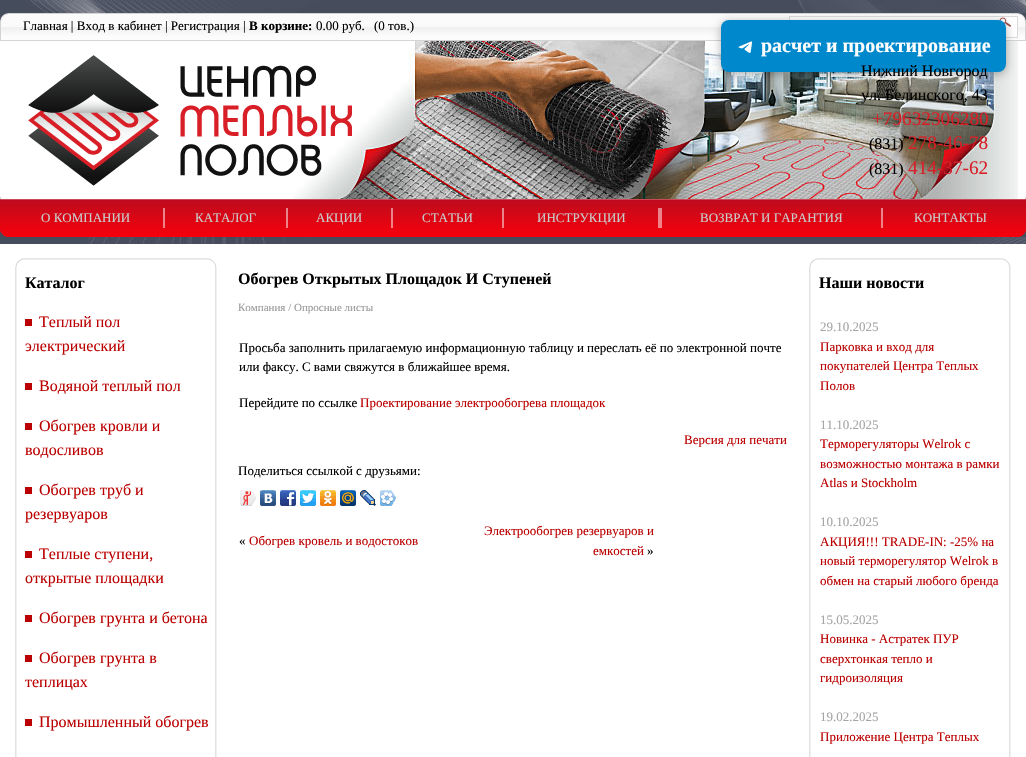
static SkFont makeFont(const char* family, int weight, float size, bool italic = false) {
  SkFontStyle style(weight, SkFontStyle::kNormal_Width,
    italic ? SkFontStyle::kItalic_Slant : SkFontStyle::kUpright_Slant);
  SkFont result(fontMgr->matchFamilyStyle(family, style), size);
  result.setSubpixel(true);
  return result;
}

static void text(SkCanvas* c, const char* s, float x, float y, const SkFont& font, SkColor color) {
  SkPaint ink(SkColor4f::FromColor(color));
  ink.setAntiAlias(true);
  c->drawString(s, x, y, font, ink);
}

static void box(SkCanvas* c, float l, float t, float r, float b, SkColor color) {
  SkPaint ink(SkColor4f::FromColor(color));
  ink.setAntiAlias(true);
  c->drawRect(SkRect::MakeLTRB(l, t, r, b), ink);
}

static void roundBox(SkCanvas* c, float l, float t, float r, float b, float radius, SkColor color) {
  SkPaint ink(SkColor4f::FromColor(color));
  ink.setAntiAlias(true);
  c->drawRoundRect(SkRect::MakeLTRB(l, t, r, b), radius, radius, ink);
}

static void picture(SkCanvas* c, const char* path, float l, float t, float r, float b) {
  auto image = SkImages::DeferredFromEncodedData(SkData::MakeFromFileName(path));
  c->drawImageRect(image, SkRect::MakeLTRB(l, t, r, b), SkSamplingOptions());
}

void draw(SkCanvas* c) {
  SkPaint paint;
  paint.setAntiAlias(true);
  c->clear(0xff454c5c);
  picture(c, "img_01.png", 26, 0, 1026, 13);
  picture(c, "img_02.png", 8, 13, 1018, 237);
  picture(c, "img_03.png", 0, 13, 8, 237);
  SkFont face1 = makeFont("Liberation Serif", 400, 13);
  text(c, "Главная | Вход в кабинет | Регистрация |", 23, 30, face1, 0xff000000);
  SkFont face2 = makeFont("Liberation Serif", 700, 13);
  text(c, "В корзине:", 249, 30, face2, 0xff000000);
  text(c, "0.00 руб.", 316, 30, face1, 0xff000000);
  text(c, "(0 тов.)", 374, 30, face1, 0xff000000);
  paint.setColor(0xffffffff);
  c->drawRect(SkRect::MakeLTRB(789.5f, 16.5f, 1017.5f, 37.5f), paint);
  paint.setStyle(SkPaint::kStroke_Style);
  paint.setStrokeWidth(1);
  paint.setColor(0xffdadada);
  c->drawRect(SkRect::MakeLTRB(789.5f, 16.5f, 1017.5f, 37.5f), paint);
  picture(c, "img_04.png", 999, 17, 1011, 27);
  picture(c, "img_05.png", 1018, 13, 1026, 237);
  box(c, 8, 197, 293, 199, 0xffffffff);
  picture(c, "img_06.png", 293, 41, 1018, 199);
  picture(c, "img_07.png", 28, 55, 352, 186);
  paint.setStyle(SkPaint::kFill_Style);
  paint.setColor(0x4d000000);
  paint.setMaskFilter(SkMaskFilter::MakeBlur(kNormal_SkBlurStyle, 5));
  c->drawRoundRect(SkRect::MakeLTRB(721, 22, 1006, 74), 8, 8, paint);
  paint.setMaskFilter(nullptr);
  roundBox(c, 721, 20, 1006, 72, 8, 0xff0088cc);
  SkFont face3 = makeFont("Liberation Serif", 400, 16);
  text(c, "Нижний Новгород", 861, 76, face3, 0xff000000);
  text(c, "ул. Белинского, 43", 861, 100, face3, 0xff000000);
  SkFont face4 = makeFont("Liberation Serif", 400, 19.25f);
  text(c, "+79632306280", 872, 125, face4, 0xffd81f27);
  text(c, "(831)", 869, 149, face3, 0xff000000);
  text(c, "278-46-78", 908, 149, face4, 0xffd81f27);
  text(c, "(831)", 869, 174, face3, 0xff000000);
  text(c, "414-37-62", 908, 174, face4, 0xffd81f27);
  text(c, "О КОМПАНИИ", 41, 222, face1, 0xffcacccb);
  picture(c, "img_08.png", 163, 208, 165, 228);
  text(c, "КАТАЛОГ", 195, 222, face1, 0xffcacccb);
  picture(c, "img_08.png", 286, 208, 288, 228);
  text(c, "АКЦИИ", 316, 222, face1, 0xffcacccb);
  picture(c, "img_08.png", 391, 208, 393, 228);
  text(c, "СТАТЬИ", 422, 222, face1, 0xffcacccb);
  picture(c, "img_08.png", 502, 208, 504, 228);
  text(c, "ИНСТРУКЦИИ", 537, 222, face1, 0xffcacccb);
  picture(c, "img_08.png", 658, 208, 660, 228);
  picture(c, "img_08.png", 660, 208, 662, 228);
  text(c, "ВОЗВРАТ И ГАРАНТИЯ", 700, 222, face1, 0xffcacccb);
  picture(c, "img_08.png", 881, 208, 883, 228);
  text(c, "КОНТАКТЫ", 914, 222, face1, 0xffcacccb);
  picture(c, "img_09.png", 738, 41, 753, 53);
  SkFont face5 = makeFont("Liberation Serif", 700, 20);
  text(c, "расчет и проектирование", 761, 52, face5, 0xffffffff);
  picture(c, "img_10.png", 88, 237, 1026, 244);
  box(c, 0, 244, 1026, 757, 0xffffffff);
  picture(c, "img_11.png", 15, 258, 217, 268);
  picture(c, "img_12.png", 15, 268, 217, 757);
  SkFont face6 = makeFont("Liberation Serif", 700, 16);
  text(c, "Каталог", 25, 288, face6, 0xff000000);
  box(c, 25, 319, 32, 326, 0xffbb0000);
  text(c, "Теплый пол", 39, 327, face3, 0xffbb0000);
  text(c, "электрический", 25, 351, face3, 0xffbb0000);
  box(c, 25, 383, 32, 390, 0xffbb0000);
  text(c, "Водяной теплый пол", 39, 391, face3, 0xffbb0000);
  box(c, 25, 423, 32, 430, 0xffbb0000);
  text(c, "Обогрев кровли и", 39, 431, face3, 0xffbb0000);
  text(c, "водосливов", 25, 455, face3, 0xffbb0000);
  box(c, 25, 487, 32, 494, 0xffbb0000);
  text(c, "Обогрев труб и", 39, 495, face3, 0xffbb0000);
  text(c, "резервуаров", 25, 519, face3, 0xffbb0000);
  box(c, 25, 551, 32, 558, 0xffbb0000);
  text(c, "Теплые ступени,", 39, 559, face3, 0xffbb0000);
  text(c, "открытые площадки", 25, 583, face3, 0xffbb0000);
  box(c, 25, 615, 32, 622, 0xffbb0000);
  text(c, "Обогрев грунта и бетона", 39, 623, face3, 0xffbb0000);
  box(c, 25, 655, 32, 662, 0xffbb0000);
  text(c, "Обогрев грунта в", 39, 663, face3, 0xffbb0000);
  text(c, "теплицах", 25, 687, face3, 0xffbb0000);
  box(c, 25, 719, 32, 726, 0xffbb0000);
  text(c, "Промышленный обогрев", 39, 727, face3, 0xffbb0000);
  text(c, "Обогрев Открытых Площадок И Ступеней", 238, 284, face6, 0xff000000);
  SkFont face7 = makeFont("Liberation Serif", 400, 11);
  text(c, "Компания / Опросные листы", 238, 311, face7, 0xff999999);
  text(c, "Просьба заполнить прилагаемую информационную таблицу и переслать её по электронной почте", 239, 352, face1, 0xff000000);
  text(c, "или факсу. С вами свяжутся в ближайшее время.", 239, 371, face1, 0xff000000);
  text(c, "Перейдите по ссылке", 239, 407, face1, 0xff000000);
  text(c, "Проектирование электрообогрева площадок", 360, 407, face1, 0xffbb0000);
  text(c, "Версия для печати", 684, 444, face1, 0xffbb0000);
  text(c, "Поделиться ссылкой с друзьями:", 238, 475, face1, 0xff000000);
  picture(c, "img_13.png", 240, 490, 256, 506);
  picture(c, "img_14.png", 260, 490, 276, 506);
  picture(c, "img_15.png", 280, 490, 296, 506);
  picture(c, "img_16.png", 300, 490, 316, 506);
  picture(c, "img_17.png", 320, 490, 336, 506);
  picture(c, "img_18.png", 340, 490, 356, 506);
  picture(c, "img_19.png", 360, 490, 376, 506);
  picture(c, "img_20.png", 380, 490, 396, 506);
  text(c, "«", 239, 545, face1, 0xff000000);
  text(c, "Обогрев кровель и водостоков", 249, 545, face1, 0xffbb0000);
  text(c, "Электрообогрев резервуаров и", 484, 535, face1, 0xffbb0000);
  text(c, "емкостей", 593, 555, face1, 0xffbb0000);
  text(c, "»", 647, 555, face1, 0xff000000);
  picture(c, "img_11.png", 809, 258, 1011, 268);
  picture(c, "img_12.png", 809, 268, 1011, 757);
  text(c, "Наши новости", 819, 288, face6, 0xff000000);
  text(c, "29.10.2025", 820, 331, face1, 0xffa5a5a5);
  text(c, "Парковка и вход для", 820, 351, face1, 0xffbb0000);
  text(c, "покупателей Центра Теплых", 820, 370, face1, 0xffbb0000);
  text(c, "Полов", 820, 390, face1, 0xffbb0000);
  text(c, "11.10.2025", 820, 429, face1, 0xffa5a5a5);
  text(c, "Терморегуляторы Welrok с", 820, 448, face1, 0xffbb0000);
  text(c, "возможностью монтажа в рамки", 820, 468, face1, 0xffbb0000);
  text(c, "Atlas и Stockholm", 820, 487, face1, 0xffbb0000);
  text(c, "10.10.2025", 820, 526, face1, 0xffa5a5a5);
  text(c, "АКЦИЯ!!! TRADE-IN: -25% на", 820, 546, face1, 0xffbb0000);
  text(c, "новый терморегулятор Welrok в", 820, 565, face1, 0xffbb0000);
  text(c, "обмен на старый любого бренда", 820, 585, face1, 0xffbb0000);
  text(c, "15.05.2025", 820, 624, face1, 0xffa5a5a5);
  text(c, "Новинка - Астратек ПУР", 820, 643, face1, 0xffbb0000);
  text(c, "сверхтонкая тепло и", 820, 663, face1, 0xffbb0000);
  text(c, "гидроизоляция", 820, 682, face1, 0xffbb0000);
  text(c, "19.02.2025", 820, 721, face1, 0xffa5a5a5);
  text(c, "Приложение Центра Теплых", 820, 741, face1, 0xffbb0000);
}
